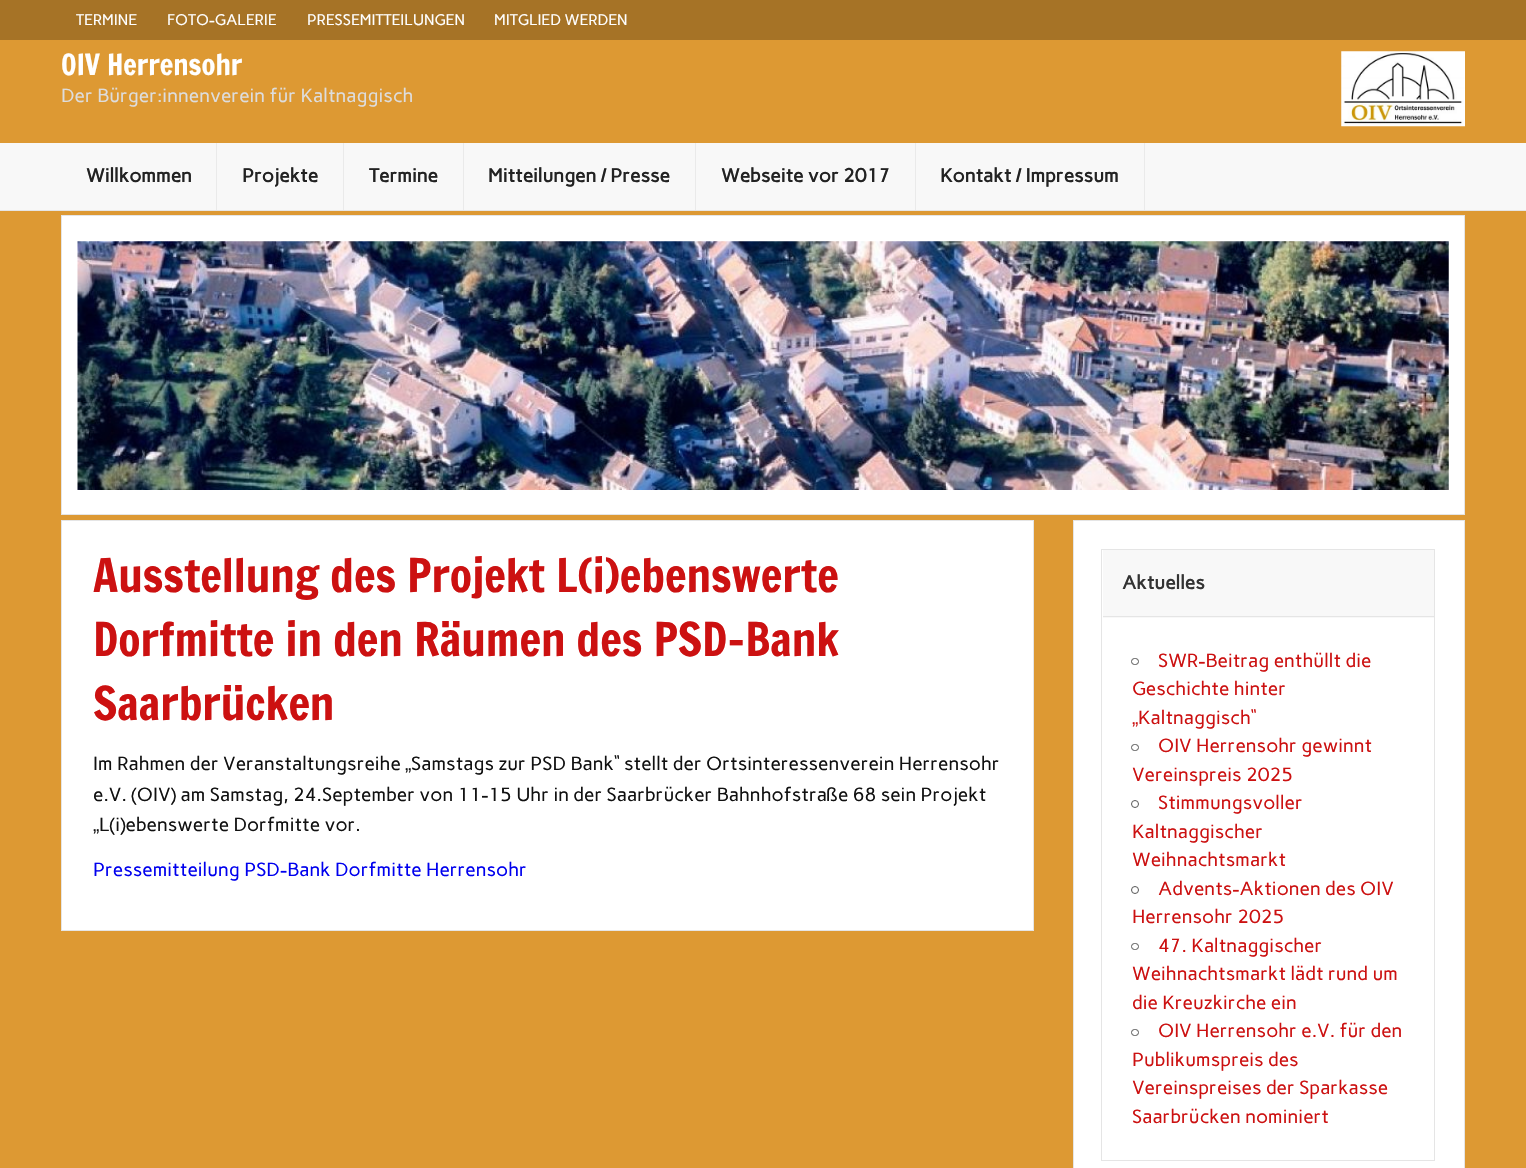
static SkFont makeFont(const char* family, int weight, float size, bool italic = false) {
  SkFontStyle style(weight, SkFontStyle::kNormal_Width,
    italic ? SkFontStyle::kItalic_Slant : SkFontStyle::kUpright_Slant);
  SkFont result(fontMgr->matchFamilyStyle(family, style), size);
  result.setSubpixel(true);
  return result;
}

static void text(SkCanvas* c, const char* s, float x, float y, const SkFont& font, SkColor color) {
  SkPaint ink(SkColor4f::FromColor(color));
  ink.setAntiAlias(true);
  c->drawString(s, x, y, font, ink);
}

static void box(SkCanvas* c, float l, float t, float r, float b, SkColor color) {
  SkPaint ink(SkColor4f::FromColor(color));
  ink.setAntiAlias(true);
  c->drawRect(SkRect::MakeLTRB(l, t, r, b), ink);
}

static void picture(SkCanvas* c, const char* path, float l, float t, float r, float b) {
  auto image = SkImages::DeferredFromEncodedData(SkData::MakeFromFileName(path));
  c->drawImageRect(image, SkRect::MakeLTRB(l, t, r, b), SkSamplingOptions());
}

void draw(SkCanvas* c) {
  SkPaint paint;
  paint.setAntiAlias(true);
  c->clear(0xffdd9933);
  box(c, 0, 0, 1526, 40, 0xffa67326);
  SkFont face1 = makeFont("Carme", 400, 15.25f);
  text(c, "TERMINE", 76, 25, face1, 0xffffffff);
  text(c, "FOTO-GALERIE", 167, 25, face1, 0xffffffff);
  text(c, "PRESSEMITTEILUNGEN", 307, 25, face1, 0xffffffff);
  text(c, "MITGLIED WERDEN", 494, 25, face1, 0xffffffff);
  SkFont face2 = makeFont("Francois One", 400, 28.5f);
  text(c, "OIV Herrensohr", 61, 75, face2, 0xffffffff);
  SkFont face3 = makeFont("Carme", 400, 19);
  text(c, "Der Bürger:innenverein für Kaltnaggisch", 61, 102, face3, 0xffdddddd);
  picture(c, "img_01.png", 1341, 51, 1465, 127);
  box(c, 0, 143, 1526, 210, 0xfff8f8f8);
  box(c, 0, 210, 1526, 211, 0xffe5e5e5);
  box(c, 216, 143, 217, 210, 0xffeaeaea);
  SkFont face4 = makeFont("Carme", 700, 19);
  text(c, "Willkommen", 86, 182, face4, 0xff222222);
  box(c, 343, 143, 344, 210, 0xffeaeaea);
  text(c, "Projekte", 242, 182, face4, 0xff222222);
  box(c, 463, 143, 464, 210, 0xffeaeaea);
  text(c, "Termine", 369, 182, face4, 0xff222222);
  box(c, 695, 143, 696, 210, 0xffeaeaea);
  text(c, "Mitteilungen / Presse", 488, 182, face4, 0xff222222);
  box(c, 915, 143, 916, 210, 0xffeaeaea);
  text(c, "Webseite vor 2017", 721, 182, face4, 0xff222222);
  box(c, 1144, 143, 1145, 210, 0xffeaeaea);
  text(c, "Kontakt / Impressum", 940, 182, face4, 0xff222222);
  paint.setColor(0xffffffff);
  c->drawRect(SkRect::MakeLTRB(61.5f, 215.5f, 1464.5f, 514.5f), paint);
  paint.setStyle(SkPaint::kStroke_Style);
  paint.setStrokeWidth(1);
  paint.setColor(0xffe5e5e5);
  c->drawRect(SkRect::MakeLTRB(61.5f, 215.5f, 1464.5f, 514.5f), paint);
  picture(c, "img_02.png", 77, 241, 1449, 490);
  paint.setStyle(SkPaint::kFill_Style);
  paint.setColor(0xffffffff);
  c->drawRect(SkRect::MakeLTRB(61.5f, 520.5f, 1033.5f, 930.5f), paint);
  paint.setStyle(SkPaint::kStroke_Style);
  paint.setColor(0xffe5e5e5);
  c->drawRect(SkRect::MakeLTRB(61.5f, 520.5f, 1033.5f, 930.5f), paint);
  SkFont face5 = makeFont("Francois One", 400, 45.6f);
  text(c, "Ausstellung des Projekt L(i)ebenswerte", 93, 592, face5, 0xffcc1111);
  text(c, "Dorfmitte in den Räumen des PSD-Bank", 93, 656, face5, 0xffcc1111);
  text(c, "Saarbrücken", 93, 720, face5, 0xffcc1111);
  text(c, "Im Rahmen der Veranstaltungsreihe", 93, 770, face3, 0xff111111);
  SkFont face6 = makeFont("Liberation Sans", 400, 19);
  text(c, "„", 405, 770, face6, 0xff111111);
  text(c, "Samstags zur PSD Bank“ stellt der Ortsinteressenverein Herrensohr", 411, 770, face3, 0xff111111);
  text(c, "e.V. (OIV) am Samstag, 24.September von 11-15 Uhr in der Saarbrücker Bahnhofstra", 93, 801, face3, 0xff111111);
  text(c, "ß", 826, 801, face6, 0xff111111);
  text(c, "e 68 sein Projekt", 838, 801, face3, 0xff111111);
  text(c, "„", 93, 831, face6, 0xff111111);
  text(c, "L(i)ebenswerte Dorfmitte vor.", 99, 831, face3, 0xff111111);
  text(c, "Pressemitteilung PSD-Bank Dorfmitte Herrensohr", 93, 876, face3, 0xff0000ee);
  paint.setStyle(SkPaint::kFill_Style);
  paint.setColor(0xffffffff);
  c->drawRect(SkRect::MakeLTRB(1073.5f, 520.5f, 1464.5f, 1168.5f), paint);
  paint.setStyle(SkPaint::kStroke_Style);
  paint.setColor(0xffe5e5e5);
  c->drawRect(SkRect::MakeLTRB(1073.5f, 520.5f, 1464.5f, 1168.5f), paint);
  c->drawRect(SkRect::MakeLTRB(1101.5f, 549.5f, 1434.5f, 1160.5f), paint);
  box(c, 1103, 550, 1434, 618, 0xfff8f8f8);
  box(c, 1103, 616, 1434, 617, 0xffe5e5e5);
  text(c, "Aktuelles", 1122, 589, face4, 0xff333333);
  paint.setColor(0xff555555);
  c->drawRoundRect(SkRect::MakeLTRB(1131.5f, 658.5f, 1138.5f, 664.5f), 3, 3, paint);
  text(c, "SWR-Beitrag enthüllt die", 1158, 667, face3, 0xffcc1111);
  text(c, "Geschichte hinter", 1132, 695, face3, 0xffcc1111);
  text(c, "„", 1132, 724, face6, 0xffcc1111);
  text(c, "Kaltnaggisch“", 1138, 724, face3, 0xffcc1111);
  c->drawRoundRect(SkRect::MakeLTRB(1131.5f, 744.5f, 1138.5f, 750.5f), 3, 3, paint);
  text(c, "OIV Herrensohr gewinnt", 1158, 752, face3, 0xffcc1111);
  text(c, "Vereinspreis 2025", 1132, 781, face3, 0xffcc1111);
  c->drawCircle(1135, 804, 3.5f, paint);
  text(c, "Stimmungsvoller", 1158, 809, face3, 0xffcc1111);
  text(c, "Kaltnaggischer", 1132, 838, face3, 0xffcc1111);
  text(c, "Weihnachtsmarkt", 1132, 866, face3, 0xffcc1111);
  c->drawCircle(1135, 890, 3.5f, paint);
  text(c, "Advents-Aktionen des OIV", 1158, 895, face3, 0xffcc1111);
  text(c, "Herrensohr 2025", 1132, 923, face3, 0xffcc1111);
  c->drawRoundRect(SkRect::MakeLTRB(1131.5f, 943.5f, 1138.5f, 949.5f), 3, 3, paint);
  text(c, "47. Kaltnaggischer", 1158, 952, face3, 0xffcc1111);
  text(c, "Weihnachtsmarkt lädt rund um", 1132, 980, face3, 0xffcc1111);
  text(c, "die Kreuzkirche ein", 1132, 1009, face3, 0xffcc1111);
  c->drawRoundRect(SkRect::MakeLTRB(1131.5f, 1029.5f, 1138.5f, 1035.5f), 3, 3, paint);
  text(c, "OIV Herrensohr e.V. für den", 1158, 1037, face3, 0xffcc1111);
  text(c, "Publikumspreis des", 1132, 1066, face3, 0xffcc1111);
  text(c, "Vereinspreises der Sparkasse", 1132, 1094, face3, 0xffcc1111);
  text(c, "Saarbrücken nominiert", 1132, 1123, face3, 0xffcc1111);
}
